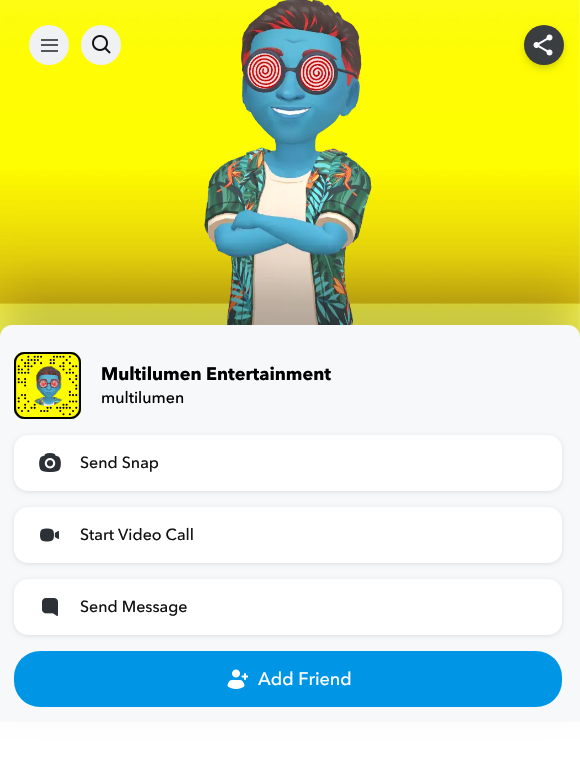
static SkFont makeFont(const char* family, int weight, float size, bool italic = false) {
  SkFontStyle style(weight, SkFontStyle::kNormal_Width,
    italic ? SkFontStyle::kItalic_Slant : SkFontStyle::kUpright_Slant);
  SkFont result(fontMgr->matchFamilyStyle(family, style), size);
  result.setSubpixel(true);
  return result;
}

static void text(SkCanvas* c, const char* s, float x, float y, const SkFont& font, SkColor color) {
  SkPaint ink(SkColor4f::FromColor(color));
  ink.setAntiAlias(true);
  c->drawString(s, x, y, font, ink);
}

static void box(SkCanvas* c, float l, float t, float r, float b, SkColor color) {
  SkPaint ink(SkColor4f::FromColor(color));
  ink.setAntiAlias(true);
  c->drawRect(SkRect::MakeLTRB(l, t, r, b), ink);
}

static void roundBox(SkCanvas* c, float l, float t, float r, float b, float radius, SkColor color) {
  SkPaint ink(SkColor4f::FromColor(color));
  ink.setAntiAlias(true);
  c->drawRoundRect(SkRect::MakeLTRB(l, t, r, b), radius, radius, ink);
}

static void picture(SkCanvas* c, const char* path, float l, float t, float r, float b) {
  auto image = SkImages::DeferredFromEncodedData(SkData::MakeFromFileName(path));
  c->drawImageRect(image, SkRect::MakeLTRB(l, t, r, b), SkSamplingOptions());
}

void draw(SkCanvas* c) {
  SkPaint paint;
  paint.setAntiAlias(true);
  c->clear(0xffffffff);
  picture(c, "img_02.png", 0, 0, 580, 337);
  paint.setColor(0xfff0f1f2);
  c->drawCircle(49, 45, 20, paint);
  box(c, 41, 39, 58, 41, 0xff53575b);
  box(c, 41, 44, 58, 46, 0xff53575b);
  box(c, 41, 50, 58, 52, 0xff53575b);
  c->drawCircle(101, 45, 20, paint);
  picture(c, "img_01.png", 92, 35, 111, 54);
  picture(c, "img_03.png", 204, 0, 372, 325);
  paint.setColor(0x40000000);
  paint.setMaskFilter(SkMaskFilter::MakeBlur(kNormal_SkBlurStyle, 4));
  c->drawRoundRect(SkRect::MakeLTRB(526, 31, 562, 67), 18, 18, paint);
  paint.setMaskFilter(nullptr);
  paint.setColor(0xff3a3e41);
  c->drawCircle(544, 45, 20, paint);
  picture(c, "img_04.png", 533, 34, 553, 56);
  paint.setColor(0x33000000);
  paint.setMaskFilter(SkMaskFilter::MakeBlur(kNormal_SkBlurStyle, 25));
  c->drawRoundRect(SkRect::MakeLTRB(0, 285, 580, 682), 12, 12, paint);
  paint.setMaskFilter(nullptr);
  paint.setColor(0xfff7f8f9);
  c->drawPath(SkPathBuilder().moveTo(12, 325).lineTo(568, 325).cubicTo(574.5f, 325, 580, 330.5f, 580, 337).lineTo(580, 722).lineTo(0, 722).lineTo(0, 337).cubicTo(0, 330.5f, 5.5f, 325, 12, 325).close().detach(), paint);
  picture(c, "img_05.png", 14, 352, 81, 419);
  SkFont face1 = makeFont("Avenir Next", 700, 18);
  text(c, "Multilumen Entertainment", 101, 380, face1, 0xff000000);
  SkFont face2 = makeFont("Avenir Next", 500, 16);
  text(c, "multilumen", 101, 403, face2, 0xff000000);
  paint.setColor(0x1a000000);
  paint.setMaskFilter(SkMaskFilter::MakeBlur(kNormal_SkBlurStyle, 2));
  c->drawRoundRect(SkRect::MakeLTRB(14, 436, 562, 492), 14, 14, paint);
  paint.setMaskFilter(nullptr);
  roundBox(c, 14, 435, 562, 491, 14, 0xffffffff);
  picture(c, "img_06.png", 39, 453, 61, 473);
  text(c, "Send Snap", 80, 468, face2, 0xff121314);
  paint.setMaskFilter(SkMaskFilter::MakeBlur(kNormal_SkBlurStyle, 2));
  c->drawRoundRect(SkRect::MakeLTRB(14, 508, 562, 564), 14, 14, paint);
  paint.setMaskFilter(nullptr);
  roundBox(c, 14, 507, 562, 563, 14, 0xffffffff);
  picture(c, "img_07.png", 40, 528, 59, 542);
  text(c, "Start Video Call", 80, 540, face2, 0xff121314);
  paint.setMaskFilter(SkMaskFilter::MakeBlur(kNormal_SkBlurStyle, 2));
  c->drawRoundRect(SkRect::MakeLTRB(14, 580, 562, 636), 14, 14, paint);
  paint.setMaskFilter(nullptr);
  roundBox(c, 14, 579, 562, 635, 14, 0xffffffff);
  picture(c, "img_08.png", 42, 598, 58, 616);
  text(c, "Send Message", 80, 612, face2, 0xff121314);
  roundBox(c, 14, 651, 562, 707, 26, 0xff0096e5);
  picture(c, "img_09.png", 227, 669, 248, 689);
  SkFont face3 = makeFont("Avenir Next", 500, 18);
  text(c, "Add Friend", 258, 685, face3, 0xffffffff);
}
